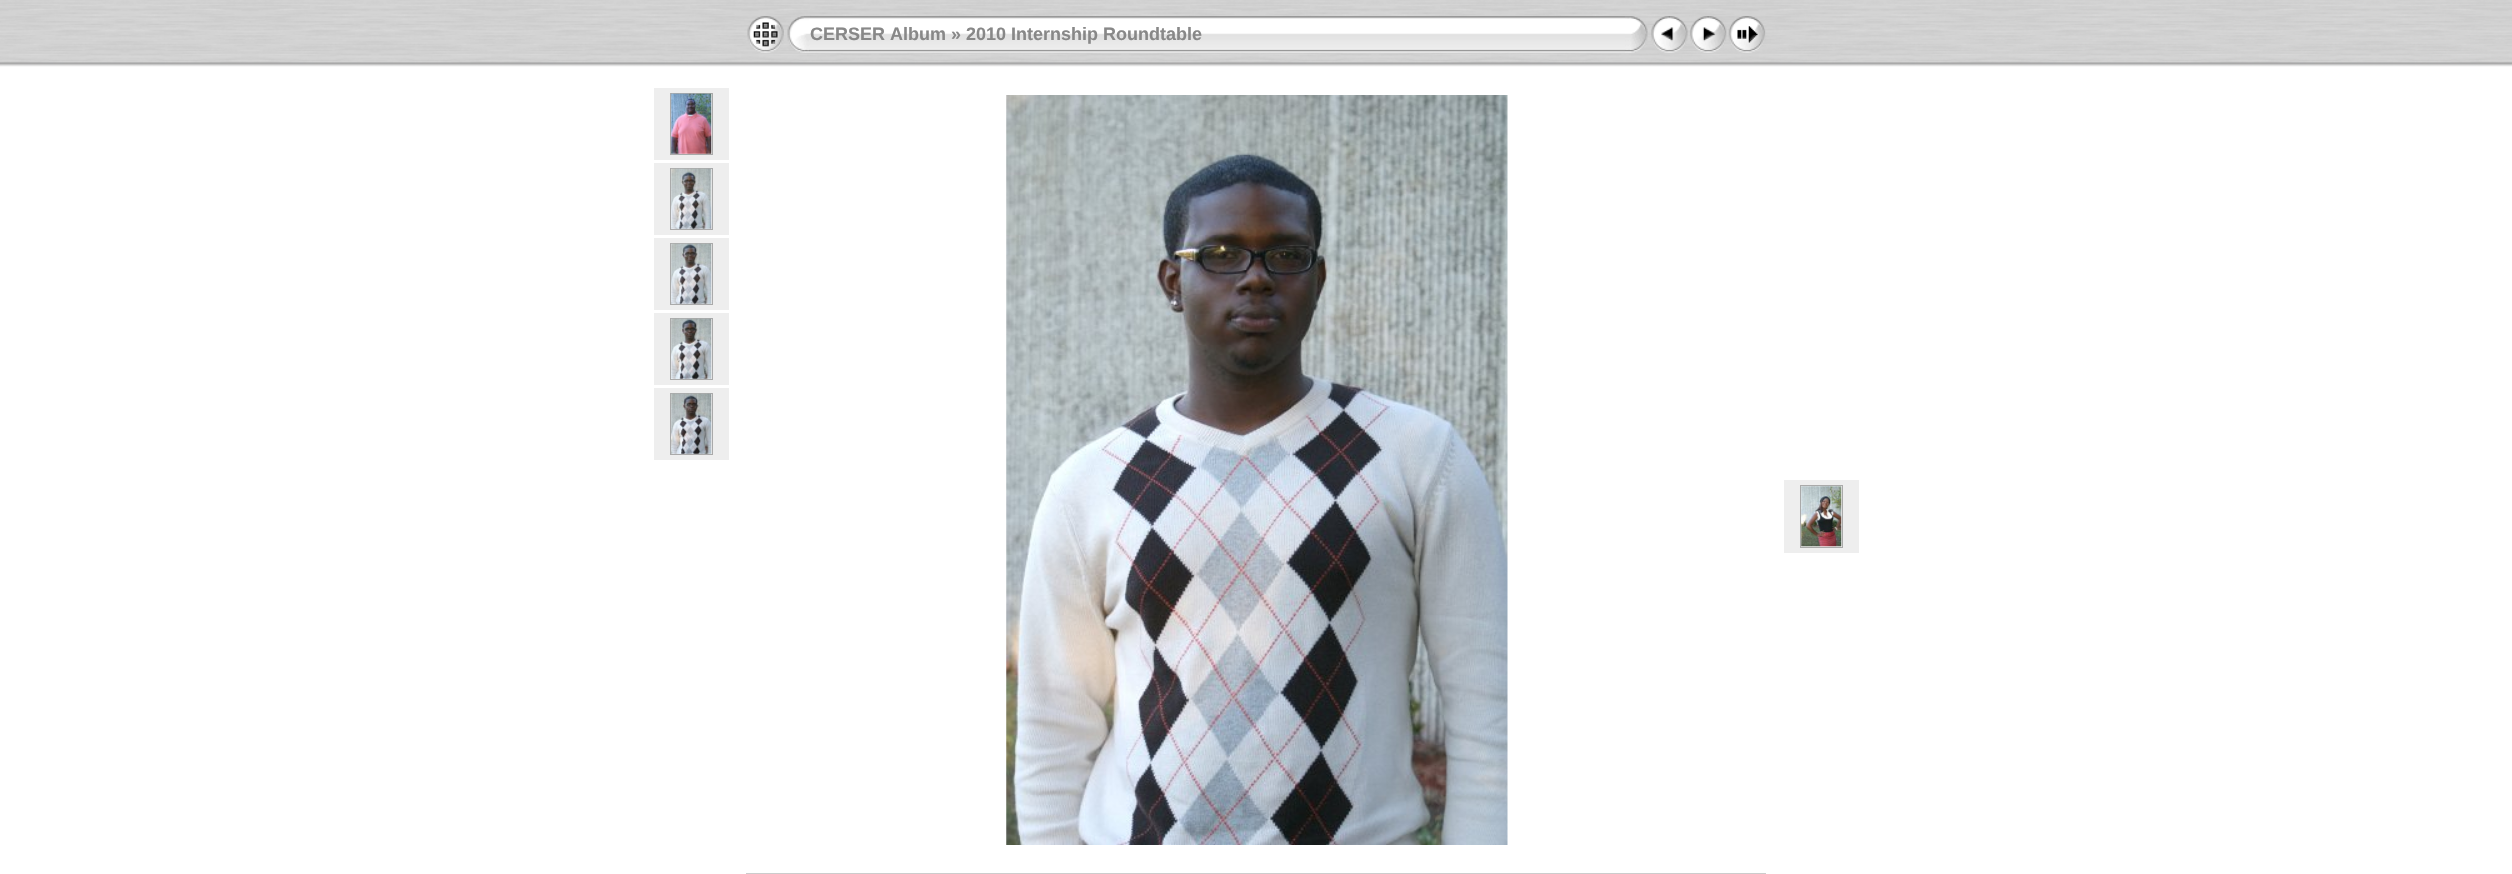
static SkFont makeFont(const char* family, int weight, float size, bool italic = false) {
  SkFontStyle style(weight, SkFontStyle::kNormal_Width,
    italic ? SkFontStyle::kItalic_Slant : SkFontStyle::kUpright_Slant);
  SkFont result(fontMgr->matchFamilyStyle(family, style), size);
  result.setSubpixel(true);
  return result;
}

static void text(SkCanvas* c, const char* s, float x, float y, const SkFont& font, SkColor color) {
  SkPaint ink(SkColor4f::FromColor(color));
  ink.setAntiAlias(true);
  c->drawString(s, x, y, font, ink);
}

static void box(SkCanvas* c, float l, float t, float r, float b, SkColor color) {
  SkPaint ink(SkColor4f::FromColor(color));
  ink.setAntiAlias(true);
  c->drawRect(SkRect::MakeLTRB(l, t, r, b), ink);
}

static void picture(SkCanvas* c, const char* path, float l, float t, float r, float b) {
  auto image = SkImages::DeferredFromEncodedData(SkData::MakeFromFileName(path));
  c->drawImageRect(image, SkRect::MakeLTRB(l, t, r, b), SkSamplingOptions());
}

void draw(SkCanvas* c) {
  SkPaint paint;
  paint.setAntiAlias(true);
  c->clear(0xffffffff);
  picture(c, "img_01.png", 0, 0, 2512, 67);
  picture(c, "img_02.png", 747, 16, 784, 53);
  picture(c, "img_03.png", 787, 16, 810, 53);
  picture(c, "img_04.png", 810, 16, 1625, 53);
  SkFont face1 = makeFont("Liberation Sans", 700, 18);
  text(c, "CERSER Album » 2010 Internship Roundtable", 810, 40, face1, 0xff888888);
  picture(c, "img_05.png", 1625, 16, 1648, 53);
  picture(c, "img_06.png", 1651, 16, 1688, 53);
  picture(c, "img_07.png", 1690, 16, 1727, 53);
  picture(c, "img_08.png", 1728, 16, 1766, 53);
  box(c, 654, 88, 729, 160, 0xffeeeeee);
  paint.setStyle(SkPaint::kStroke_Style);
  paint.setStrokeWidth(1);
  paint.setColor(0xffaaaaaa);
  c->drawRect(SkRect::MakeLTRB(670.5f, 93.5f, 712.5f, 154.5f), paint);
  picture(c, "img_09.png", 671, 93, 712, 154);
  box(c, 654, 163, 729, 235, 0xffeeeeee);
  c->drawRect(SkRect::MakeLTRB(670.5f, 168.5f, 712.5f, 229.5f), paint);
  picture(c, "img_10.png", 671, 168, 712, 229);
  box(c, 654, 238, 729, 310, 0xffeeeeee);
  c->drawRect(SkRect::MakeLTRB(670.5f, 243.5f, 712.5f, 304.5f), paint);
  picture(c, "img_11.png", 671, 243, 712, 304);
  box(c, 654, 313, 729, 385, 0xffeeeeee);
  c->drawRect(SkRect::MakeLTRB(670.5f, 318.5f, 712.5f, 379.5f), paint);
  picture(c, "img_12.png", 671, 318, 712, 379);
  box(c, 654, 388, 729, 460, 0xffeeeeee);
  c->drawRect(SkRect::MakeLTRB(670.5f, 393.5f, 712.5f, 454.5f), paint);
  picture(c, "img_13.png", 671, 393, 712, 454);
  picture(c, "img_14.png", 1006, 95, 1508, 845);
  box(c, 1784, 480, 1859, 553, 0xffeeeeee);
  c->drawRect(SkRect::MakeLTRB(1800.5f, 485.5f, 1842.5f, 547.5f), paint);
  picture(c, "img_15.png", 1801, 486, 1842, 547);
  box(c, 746, 873, 1766, 874, 0xffcccccc);
}
